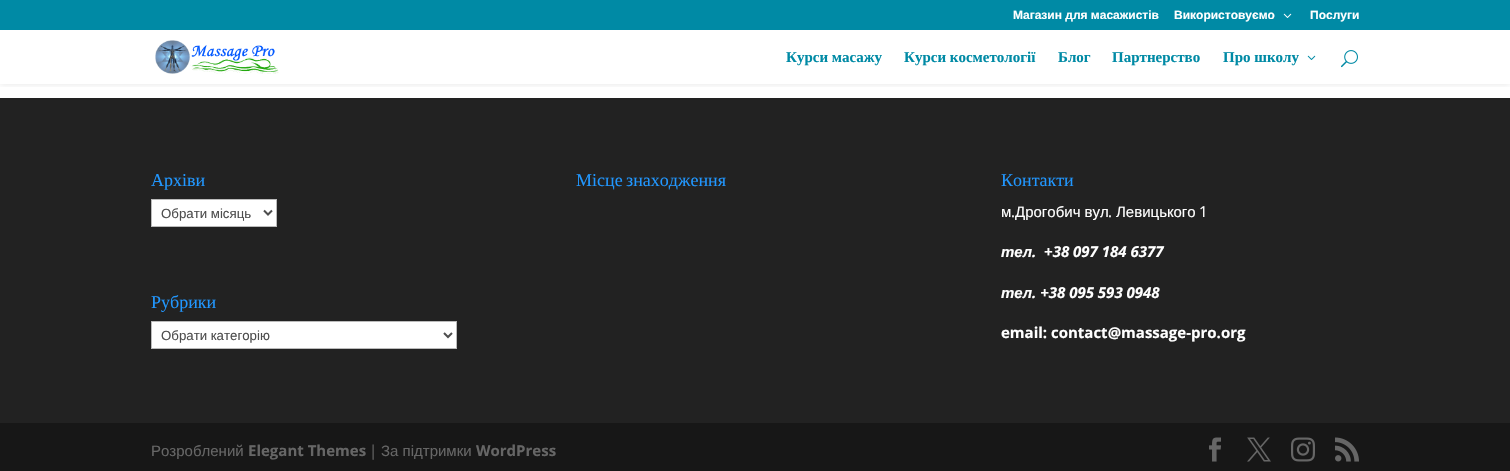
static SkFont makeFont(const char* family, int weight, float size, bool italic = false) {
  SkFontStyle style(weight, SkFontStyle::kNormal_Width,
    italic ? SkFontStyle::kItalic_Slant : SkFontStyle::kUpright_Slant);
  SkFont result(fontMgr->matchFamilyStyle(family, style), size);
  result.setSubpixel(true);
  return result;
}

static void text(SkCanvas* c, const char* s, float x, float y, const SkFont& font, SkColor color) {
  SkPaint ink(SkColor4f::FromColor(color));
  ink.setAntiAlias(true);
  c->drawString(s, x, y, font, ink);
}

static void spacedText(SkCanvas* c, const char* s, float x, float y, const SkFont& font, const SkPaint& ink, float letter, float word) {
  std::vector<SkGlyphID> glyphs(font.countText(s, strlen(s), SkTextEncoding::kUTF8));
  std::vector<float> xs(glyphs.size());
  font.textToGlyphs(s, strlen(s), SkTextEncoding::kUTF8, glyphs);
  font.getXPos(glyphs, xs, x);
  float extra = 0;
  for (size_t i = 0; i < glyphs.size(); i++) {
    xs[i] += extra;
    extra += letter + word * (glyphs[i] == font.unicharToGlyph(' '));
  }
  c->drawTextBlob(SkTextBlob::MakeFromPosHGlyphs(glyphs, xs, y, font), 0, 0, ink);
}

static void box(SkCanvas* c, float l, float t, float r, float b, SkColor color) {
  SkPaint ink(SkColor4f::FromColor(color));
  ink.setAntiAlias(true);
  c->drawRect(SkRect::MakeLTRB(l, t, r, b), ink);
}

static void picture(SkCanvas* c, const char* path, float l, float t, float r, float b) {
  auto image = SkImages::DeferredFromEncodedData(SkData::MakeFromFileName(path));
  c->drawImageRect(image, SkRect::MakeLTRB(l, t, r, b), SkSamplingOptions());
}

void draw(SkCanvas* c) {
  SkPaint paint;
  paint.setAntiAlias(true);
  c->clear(0xffffffff);
  c->save();
  c->clipRect(SkRect::MakeLTRB(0, 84, 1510, 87));
  paint.setColor(0x1a000000);
  paint.setMaskFilter(SkMaskFilter::MakeBlur(kNormal_SkBlurStyle, 3.5f));
  c->drawRect(SkRect::MakeLTRB(0, 30, 1510, 84), paint);
  paint.setMaskFilter(nullptr);
  c->restore();
  box(c, 0, 0, 1510, 30, 0xff008aa5);
  SkFont face1 = makeFont("Liberation Sans", 700, 12);
  text(c, "Магазин для масажистів", 1013, 19, face1, 0xffffffff);
  text(c, "Використовуємо", 1174, 19, face1, 0xffffffff);
  picture(c, "img_01.png", 1283, 13, 1292, 18);
  text(c, "Послуги", 1310, 19, face1, 0xffffffff);
  picture(c, "img_02.png", 155, 40, 279, 74);
  SkFont face2 = makeFont("Liberation Serif", 700, 15);
  text(c, "Курси масажу", 786, 62, face2, 0xff008aa5);
  text(c, "Курси косметології", 904, 62, face2, 0xff008aa5);
  text(c, "Блог", 1058, 62, face2, 0xff008aa5);
  text(c, "Партнерство", 1112, 62, face2, 0xff008aa5);
  text(c, "Про школу", 1223, 62, face2, 0xff008aa5);
  picture(c, "img_03.png", 1307, 55, 1316, 60);
  picture(c, "img_04.png", 1341, 50, 1358, 68);
  box(c, 0, 98, 1510, 423, 0xff222222);
  SkFont face3 = makeFont("Liberation Serif", 400, 18);
  text(c, "Архіви", 151, 186, face3, 0xff2197ff);
  paint.setColor(0xffffffff);
  c->drawRect(SkRect::MakeLTRB(151.5f, 199.5f, 276.5f, 226.5f), paint);
  paint.setStyle(SkPaint::kStroke_Style);
  paint.setStrokeWidth(1);
  paint.setColor(0xffbbbbbb);
  c->drawRect(SkRect::MakeLTRB(151.5f, 199.5f, 276.5f, 226.5f), paint);
  paint.setStrokeWidth(2);
  paint.setColor(0xff4e4e4e);
  c->drawPath(SkPathBuilder().moveTo(264, 210.5f).lineTo(268, 214.5f).lineTo(272, 210.5f).detach(), paint);
  SkFont face4 = makeFont("Liberation Sans", 400, 13.25f);
  text(c, "Обрати місяць", 161, 218, face4, 0xff4e4e4e);
  text(c, "Рубрики", 151, 308, face3, 0xff2197ff);
  paint.setStyle(SkPaint::kFill_Style);
  paint.setColor(0xffffffff);
  c->drawRect(SkRect::MakeLTRB(151.5f, 321.5f, 456.5f, 348.5f), paint);
  paint.setStyle(SkPaint::kStroke_Style);
  paint.setStrokeWidth(1);
  paint.setColor(0xffbbbbbb);
  c->drawRect(SkRect::MakeLTRB(151.5f, 321.5f, 456.5f, 348.5f), paint);
  paint.setStrokeWidth(2);
  paint.setColor(0xff4e4e4e);
  c->drawPath(SkPathBuilder().moveTo(444, 333).lineTo(448, 337).lineTo(452, 333).detach(), paint);
  text(c, "Обрати категорію", 161, 340, face4, 0xff4e4e4e);
  paint.setStyle(SkPaint::kFill_Style);
  paint.setColor(0xff2197ff);
  spacedText(c, "Місце знаходження", 576, 186, face3, paint, 0, -1);
  text(c, "Контакти", 1001, 186, face3, 0xff2197ff);
  SkFont face5 = makeFont("Liberation Sans", 400, 15);
  text(c, "м", 1001, 217, face5, 0xffffffff);
  SkFont face6 = makeFont("Open Sans", 400, 15);
  text(c, ".", 1011, 217, face6, 0xffffffff);
  text(c, "Дрогобич вул", 1015, 217, face5, 0xffffffff);
  text(c, ".", 1108, 217, face6, 0xffffffff);
  text(c, "Левицького", 1116, 217, face5, 0xffffffff);
  text(c, "1", 1199, 217, face6, 0xffffffff);
  SkFont face7 = makeFont("Liberation Sans", 700, 15, true);
  text(c, "тел", 1001, 257, face7, 0xffffffff);
  SkFont face8 = makeFont("Open Sans", 700, 15, true);
  text(c, ".  +38 097 184 6377", 1032, 257, face8, 0xffffffff);
  text(c, "тел", 1001, 298, face7, 0xffffffff);
  text(c, ". +38 095 593 0948", 1032, 298, face8, 0xffffffff);
  SkFont face9 = makeFont("Open Sans", 700, 15);
  text(c, "email: contact@massage-pro.org", 1001, 338, face9, 0xffffffff);
  box(c, 0, 423, 1510, 471, 0xff171717);
  text(c, "Розроблений", 151, 456, face5, 0xff666666);
  text(c, "Elegant Themes", 248, 456, face9, 0xff666666);
  text(c, "|", 369, 456, face6, 0xff666666);
  text(c, "За підтримки", 381, 456, face5, 0xff666666);
  text(c, "WordPress", 476, 456, face9, 0xff666666);
  picture(c, "img_05.png", 1209, 437, 1221, 462);
  picture(c, "img_06.png", 1247, 437, 1271, 462);
  picture(c, "img_07.png", 1291, 437, 1315, 462);
  picture(c, "img_08.png", 1335, 437, 1359, 462);
}
